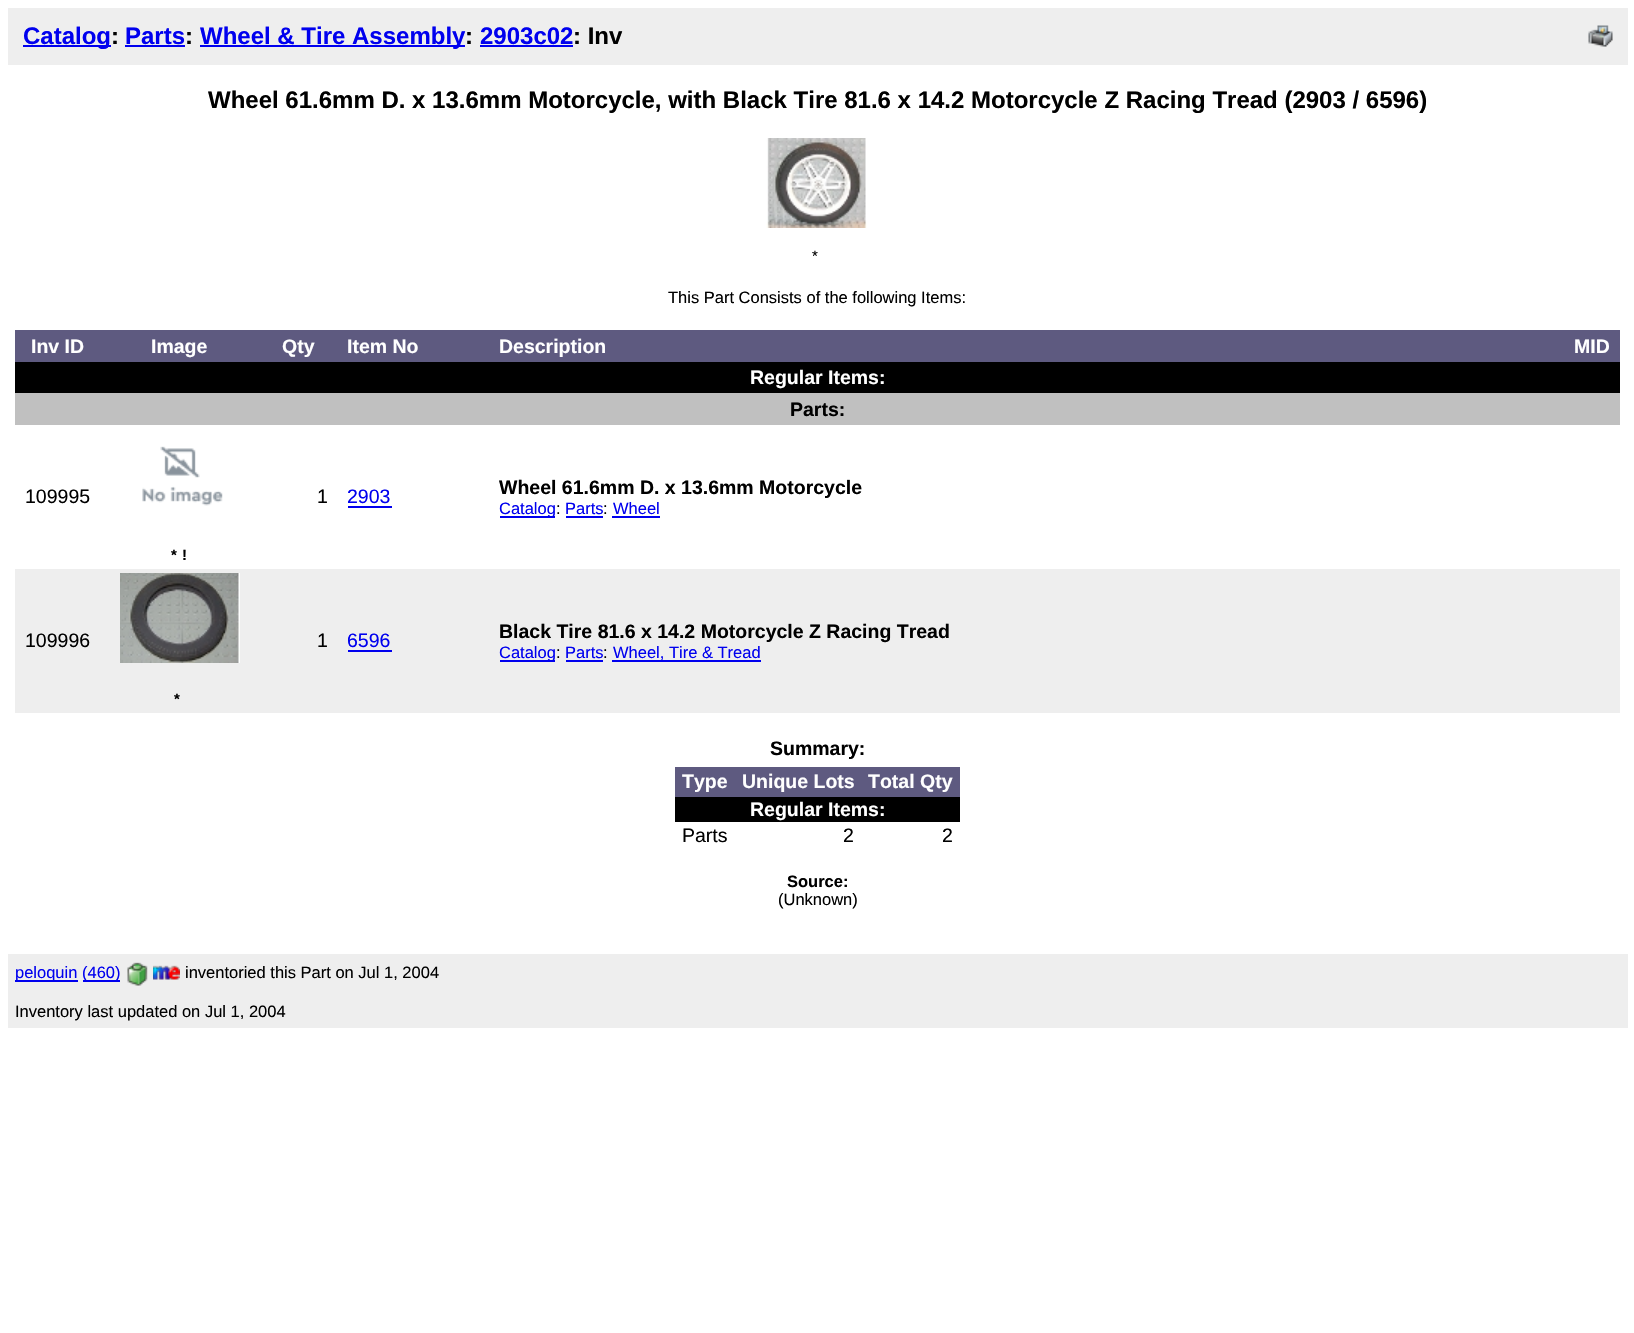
static SkFont makeFont(const char* family, int weight, float size, bool italic = false) {
  SkFontStyle style(weight, SkFontStyle::kNormal_Width,
    italic ? SkFontStyle::kItalic_Slant : SkFontStyle::kUpright_Slant);
  SkFont result(fontMgr->matchFamilyStyle(family, style), size);
  result.setSubpixel(true);
  return result;
}

static void text(SkCanvas* c, const char* s, float x, float y, const SkFont& font, SkColor color) {
  SkPaint ink(SkColor4f::FromColor(color));
  ink.setAntiAlias(true);
  c->drawString(s, x, y, font, ink);
}

static void box(SkCanvas* c, float l, float t, float r, float b, SkColor color) {
  SkPaint ink(SkColor4f::FromColor(color));
  ink.setAntiAlias(true);
  c->drawRect(SkRect::MakeLTRB(l, t, r, b), ink);
}

static void picture(SkCanvas* c, const char* path, float l, float t, float r, float b) {
  auto image = SkImages::DeferredFromEncodedData(SkData::MakeFromFileName(path));
  c->drawImageRect(image, SkRect::MakeLTRB(l, t, r, b), SkSamplingOptions());
}

void draw(SkCanvas* c) {
  SkPaint paint;
  paint.setAntiAlias(true);
  c->clear(0xffffffff);
  box(c, 8, 8, 1628, 65, 0xffeeeeee);
  box(c, 23, 45, 111, 47, 0xff0000ee);
  SkFont face1 = makeFont("Liberation Sans", 700, 24);
  text(c, "Catalog", 23, 44, face1, 0xff0000ee);
  text(c, ":", 111, 44, face1, 0xff000000);
  text(c, "Parts", 125, 44, face1, 0xff0000ee);
  text(c, ":", 185, 44, face1, 0xff000000);
  box(c, 125, 45, 185, 47, 0xff0000ee);
  box(c, 200, 45, 465, 47, 0xff0000ee);
  text(c, "Wheel & Tire Assembly", 200, 44, face1, 0xff0000ee);
  text(c, ":", 465, 44, face1, 0xff000000);
  text(c, "2903c02", 480, 44, face1, 0xff0000ee);
  box(c, 480, 45, 573, 47, 0xff0000ee);
  text(c, ": Inv", 573, 44, face1, 0xff000000);
  picture(c, "img_01.png", 1588, 25, 1613, 47);
  text(c, "Wheel 61.6mm D. x 13.6mm Motorcycle, with Black Tire 81.6 x 14.2 Motorcycle Z Racing Tread (2903 / 6596)", 208, 108, face1, 0xff000000);
  picture(c, "img_02.png", 766, 138, 867, 228);
  SkFont face2 = makeFont("Liberation Sans", 400, 15);
  text(c, "*", 812, 261, face2, 0xff000000);
  SkFont face3 = makeFont("Liberation Sans", 400, 16.5f);
  text(c, "This Part Consists of the following Items:", 668, 303, face3, 0xff000000);
  box(c, 15, 330, 1620, 362, 0xff5e5a80);
  SkFont face4 = makeFont("Liberation Sans", 700, 19.5f);
  text(c, "Inv ID", 31, 353, face4, 0xffffffff);
  text(c, "Image", 151, 353, face4, 0xffffffff);
  text(c, "Qty", 282, 353, face4, 0xffffffff);
  text(c, "Item No", 347, 353, face4, 0xffffffff);
  text(c, "Description", 499, 353, face4, 0xffffffff);
  text(c, "MID", 1574, 353, face4, 0xffffffff);
  box(c, 15, 362, 1620, 393, 0xff000000);
  text(c, "Regular Items:", 750, 384, face4, 0xffffffff);
  box(c, 15, 393, 1620, 425, 0xffc0c0c0);
  text(c, "Parts:", 790, 416, face4, 0xff000000);
  SkFont face5 = makeFont("Liberation Sans", 400, 19.5f);
  text(c, "109995", 25, 503, face5, 0xff000000);
  text(c, "1", 317, 503, face5, 0xff000000);
  text(c, "2903", 347, 503, face5, 0xff0000ee);
  box(c, 348, 506, 392, 508, 0xff0000ee);
  text(c, "Wheel 61.6mm D. x 13.6mm Motorcycle", 499, 494, face4, 0xff000000);
  box(c, 500, 516, 555, 518, 0xff0000ee);
  text(c, "Catalog", 499, 514, face3, 0xff0000ee);
  text(c, ":", 556, 514, face3, 0xff000000);
  text(c, "Parts", 565, 514, face3, 0xff0000ee);
  text(c, ":", 603, 514, face3, 0xff000000);
  box(c, 566, 516, 603, 518, 0xff0000ee);
  text(c, "Wheel", 613, 514, face3, 0xff0000ee);
  box(c, 612, 516, 660, 518, 0xff0000ee);
  picture(c, "img_03.png", 142, 446, 223, 506);
  SkFont face6 = makeFont("Liberation Sans", 700, 15);
  text(c, "*", 171, 560, face6, 0xff000000);
  text(c, "!", 182, 560, face6, 0xff000000);
  box(c, 15, 569, 1620, 713, 0xffeeeeee);
  text(c, "109996", 25, 647, face5, 0xff000000);
  text(c, "1", 317, 647, face5, 0xff000000);
  text(c, "6596", 347, 647, face5, 0xff0000ee);
  box(c, 348, 650, 392, 652, 0xff0000ee);
  text(c, "Black Tire 81.6 x 14.2 Motorcycle Z Racing Tread", 499, 638, face4, 0xff000000);
  box(c, 500, 660, 555, 662, 0xff0000ee);
  text(c, "Catalog", 499, 658, face3, 0xff0000ee);
  text(c, ":", 556, 658, face3, 0xff000000);
  text(c, "Parts", 565, 658, face3, 0xff0000ee);
  text(c, ":", 603, 658, face3, 0xff000000);
  box(c, 566, 660, 603, 662, 0xff0000ee);
  box(c, 612, 660, 761, 662, 0xff0000ee);
  text(c, "Wheel, Tire & Tread", 613, 658, face3, 0xff0000ee);
  picture(c, "img_04.png", 120, 573, 240, 663);
  text(c, "*", 174, 704, face6, 0xff000000);
  text(c, "Summary:", 770, 755, face4, 0xff000000);
  box(c, 675, 767, 960, 797, 0xff5e5a80);
  text(c, "Type", 682, 788, face4, 0xffffffff);
  text(c, "Unique Lots", 742, 788, face4, 0xffffffff);
  text(c, "Total Qty", 868, 788, face4, 0xffffffff);
  box(c, 675, 797, 960, 822, 0xff000000);
  text(c, "Regular Items:", 750, 816, face4, 0xffffffff);
  text(c, "Parts", 682, 842, face5, 0xff000000);
  text(c, "2", 843, 842, face5, 0xff000000);
  text(c, "2", 942, 842, face5, 0xff000000);
  SkFont face7 = makeFont("Liberation Sans", 700, 16.5f);
  text(c, "Source:", 787, 887, face7, 0xff000000);
  text(c, "(Unknown)", 778, 905, face3, 0xff000000);
  box(c, 8, 954, 1628, 1028, 0xffeeeeee);
  box(c, 15, 980, 78, 982, 0xff0000ee);
  text(c, "peloquin", 15, 978, face3, 0xff0000ee);
  box(c, 83, 980, 120, 982, 0xff0000ee);
  text(c, "(460)", 82, 978, face3, 0xff0000ee);
  picture(c, "img_05.png", 127, 962, 148, 986);
  picture(c, "img_06.png", 153, 965, 180, 980);
  text(c, "inventoried this Part on Jul 1, 2004", 185, 978, face3, 0xff000000);
  text(c, "Inventory last updated on Jul 1, 2004", 15, 1017, face3, 0xff000000);
}
